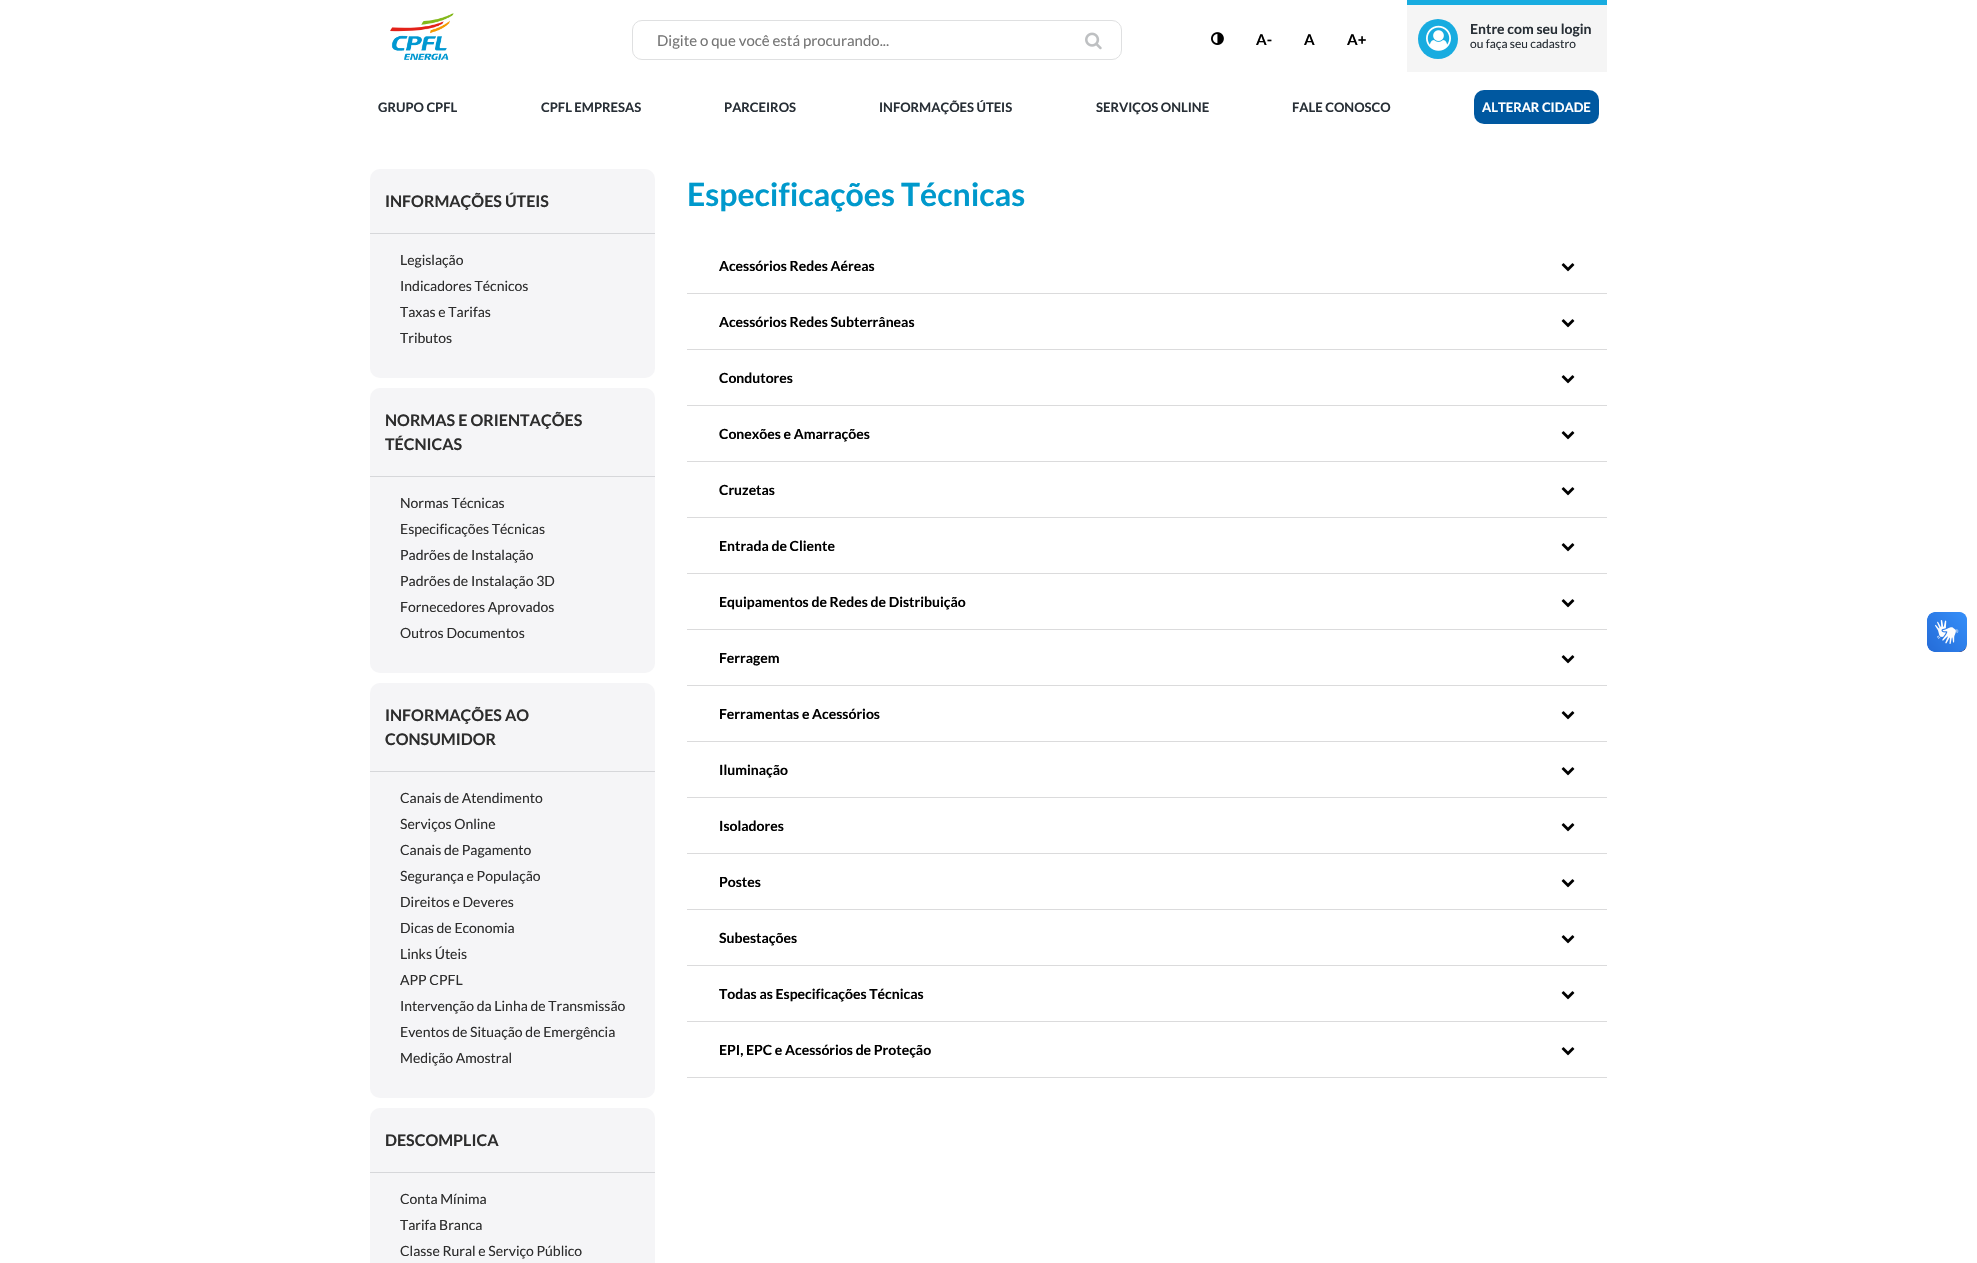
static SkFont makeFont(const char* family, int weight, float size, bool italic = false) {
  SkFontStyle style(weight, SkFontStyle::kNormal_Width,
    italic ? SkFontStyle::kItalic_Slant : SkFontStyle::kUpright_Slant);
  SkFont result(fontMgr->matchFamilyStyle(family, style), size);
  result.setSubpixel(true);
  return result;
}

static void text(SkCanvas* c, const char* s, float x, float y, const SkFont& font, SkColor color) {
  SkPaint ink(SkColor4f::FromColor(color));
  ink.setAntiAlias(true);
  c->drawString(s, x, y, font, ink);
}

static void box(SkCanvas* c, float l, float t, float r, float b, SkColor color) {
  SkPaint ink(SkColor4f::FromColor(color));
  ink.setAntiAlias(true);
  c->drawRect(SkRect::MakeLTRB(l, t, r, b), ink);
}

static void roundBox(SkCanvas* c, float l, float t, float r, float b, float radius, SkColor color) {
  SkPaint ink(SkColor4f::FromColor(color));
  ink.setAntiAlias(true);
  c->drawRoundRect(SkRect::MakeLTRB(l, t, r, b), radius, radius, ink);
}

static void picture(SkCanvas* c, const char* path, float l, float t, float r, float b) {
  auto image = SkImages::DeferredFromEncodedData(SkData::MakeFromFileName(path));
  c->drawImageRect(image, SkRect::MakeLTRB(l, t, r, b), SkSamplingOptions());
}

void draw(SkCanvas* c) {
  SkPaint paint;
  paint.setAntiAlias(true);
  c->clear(0xffffffff);
  picture(c, "img_01.png", 390, 13, 454, 60);
  paint.setStyle(SkPaint::kStroke_Style);
  paint.setStrokeWidth(1);
  paint.setColor(0xffdfe0e1);
  c->drawRoundRect(SkRect::MakeLTRB(632.5f, 20.5f, 1121.5f, 59.5f), 9.5f, 9.5f, paint);
  SkFont face1 = makeFont("Lato", 400, 15);
  text(c, "Digite o que você está procurando...", 657, 46, face1, 0xff757575);
  picture(c, "img_02.png", 1085, 32, 1102, 50);
  picture(c, "img_03.png", 1211, 32, 1224, 45);
  SkFont face2 = makeFont("Lato", 700, 15);
  text(c, "A-", 1256, 45, face2, 0xff000000);
  text(c, "A", 1304, 45, face2, 0xff000000);
  text(c, "A+", 1347, 45, face2, 0xff000000);
  box(c, 1407, 5, 1607, 72, 0xfff5f5f5);
  box(c, 1407, 0, 1607, 5, 0xff18ace0);
  paint.setStyle(SkPaint::kFill_Style);
  paint.setColor(0xff18ace0);
  c->drawCircle(1438, 39, 20, paint);
  picture(c, "img_04.png", 1426, 25, 1451, 51);
  SkFont face3 = makeFont("Lato", 700, 14);
  text(c, "Entre com seu login", 1470, 34, face3, 0xff282f36);
  SkFont face4 = makeFont("Lato", 400, 12);
  text(c, "ou faça seu cadastro", 1470, 48, face4, 0xff282f36);
  SkFont face5 = makeFont("Lato", 700, 13);
  text(c, "GRUPO CPFL", 378, 112, face5, 0xff282f36);
  text(c, "CPFL EMPRESAS", 541, 112, face5, 0xff282f36);
  text(c, "PARCEIROS", 724, 112, face5, 0xff282f36);
  text(c, "INFORMAÇÕES ÚTEIS", 879, 112, face5, 0xff282f36);
  text(c, "SERVIÇOS ONLINE", 1096, 112, face5, 0xff282f36);
  text(c, "FALE CONOSCO", 1292, 112, face5, 0xff282f36);
  roundBox(c, 1474, 90, 1599, 124, 10, 0xff0058a0);
  text(c, "ALTERAR CIDADE", 1482, 112, face5, 0xffffffff);
  roundBox(c, 370, 169, 655, 378, 10, 0xfff5f5f7);
  SkFont face6 = makeFont("Lato", 700, 16);
  text(c, "INFORMAÇÕES ÚTEIS", 385, 207, face6, 0xff2d2d2d);
  box(c, 370, 233, 655, 234, 0xffd6d7da);
  SkFont face7 = makeFont("Lato", 400, 14);
  text(c, "Legislação", 400, 265, face7, 0xff2d2d2d);
  text(c, "Indicadores Técnicos", 400, 291, face7, 0xff2d2d2d);
  text(c, "Taxas e Tarifas", 400, 317, face7, 0xff2d2d2d);
  text(c, "Tributos", 400, 343, face7, 0xff2d2d2d);
  roundBox(c, 370, 388, 655, 673, 10, 0xfff5f5f7);
  text(c, "NORMAS E ORIENTAÇÕES", 385, 426, face6, 0xff2d2d2d);
  text(c, "TÉCNICAS", 385, 450, face6, 0xff2d2d2d);
  box(c, 370, 476, 655, 477, 0xffd6d7da);
  text(c, "Normas Técnicas", 400, 508, face7, 0xff2d2d2d);
  text(c, "Especificações Técnicas", 400, 534, face7, 0xff2d2d2d);
  text(c, "Padrões de Instalação", 400, 560, face7, 0xff2d2d2d);
  text(c, "Padrões de Instalação 3D", 400, 586, face7, 0xff2d2d2d);
  text(c, "Fornecedores Aprovados", 400, 612, face7, 0xff2d2d2d);
  text(c, "Outros Documentos", 400, 638, face7, 0xff2d2d2d);
  roundBox(c, 370, 683, 655, 1098, 10, 0xfff5f5f7);
  text(c, "INFORMAÇÕES AO", 385, 721, face6, 0xff2d2d2d);
  text(c, "CONSUMIDOR", 385, 745, face6, 0xff2d2d2d);
  box(c, 370, 771, 655, 772, 0xffd6d7da);
  text(c, "Canais de Atendimento", 400, 803, face7, 0xff2d2d2d);
  text(c, "Serviços Online", 400, 829, face7, 0xff2d2d2d);
  text(c, "Canais de Pagamento", 400, 855, face7, 0xff2d2d2d);
  text(c, "Segurança e População", 400, 881, face7, 0xff2d2d2d);
  text(c, "Direitos e Deveres", 400, 907, face7, 0xff2d2d2d);
  text(c, "Dicas de Economia", 400, 933, face7, 0xff2d2d2d);
  text(c, "Links Úteis", 400, 959, face7, 0xff2d2d2d);
  text(c, "APP CPFL", 400, 985, face7, 0xff2d2d2d);
  text(c, "Intervenção da Linha de Transmissão", 400, 1011, face7, 0xff2d2d2d);
  text(c, "Eventos de Situação de Emergência", 400, 1037, face7, 0xff2d2d2d);
  text(c, "Medição Amostral", 400, 1063, face7, 0xff2d2d2d);
  roundBox(c, 370, 1108, 655, 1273, 10, 0xfff5f5f7);
  text(c, "DESCOMPLICA", 385, 1146, face6, 0xff2d2d2d);
  box(c, 370, 1172, 655, 1173, 0xffd6d7da);
  text(c, "Conta Mínima", 400, 1204, face7, 0xff2d2d2d);
  text(c, "Tarifa Branca", 400, 1230, face7, 0xff2d2d2d);
  text(c, "Classe Rural e Serviço Público", 400, 1256, face7, 0xff2d2d2d);
  SkFont face8 = makeFont("Lato", 700, 32);
  text(c, "Especificações Técnicas", 687, 206, face8, 0xff0099cc);
  box(c, 687, 293, 1607, 294, 0xffdbdbdc);
  text(c, "Acessórios Redes Aéreas", 719, 271, face3, 0xff000000);
  picture(c, "img_05.png", 1561, 263, 1575, 272);
  box(c, 687, 349, 1607, 350, 0xffdbdbdc);
  text(c, "Acessórios Redes Subterrâneas", 719, 327, face3, 0xff000000);
  picture(c, "img_05.png", 1561, 319, 1575, 328);
  box(c, 687, 405, 1607, 406, 0xffdbdbdc);
  text(c, "Condutores", 719, 383, face3, 0xff000000);
  picture(c, "img_05.png", 1561, 375, 1575, 384);
  box(c, 687, 461, 1607, 462, 0xffdbdbdc);
  text(c, "Conexões e Amarrações", 719, 439, face3, 0xff000000);
  picture(c, "img_05.png", 1561, 431, 1575, 440);
  box(c, 687, 517, 1607, 518, 0xffdbdbdc);
  text(c, "Cruzetas", 719, 495, face3, 0xff000000);
  picture(c, "img_05.png", 1561, 487, 1575, 496);
  box(c, 687, 573, 1607, 574, 0xffdbdbdc);
  text(c, "Entrada de Cliente", 719, 551, face3, 0xff000000);
  picture(c, "img_05.png", 1561, 543, 1575, 552);
  box(c, 687, 629, 1607, 630, 0xffdbdbdc);
  text(c, "Equipamentos de Redes de Distribuição", 719, 607, face3, 0xff000000);
  picture(c, "img_05.png", 1561, 599, 1575, 608);
  box(c, 687, 685, 1607, 686, 0xffdbdbdc);
  text(c, "Ferragem", 719, 663, face3, 0xff000000);
  picture(c, "img_05.png", 1561, 655, 1575, 664);
  box(c, 687, 741, 1607, 742, 0xffdbdbdc);
  text(c, "Ferramentas e Acessórios", 719, 719, face3, 0xff000000);
  picture(c, "img_05.png", 1561, 711, 1575, 720);
  box(c, 687, 797, 1607, 798, 0xffdbdbdc);
  text(c, "Iluminação", 719, 775, face3, 0xff000000);
  picture(c, "img_05.png", 1561, 767, 1575, 776);
  box(c, 687, 853, 1607, 854, 0xffdbdbdc);
  text(c, "Isoladores", 719, 831, face3, 0xff000000);
  picture(c, "img_05.png", 1561, 823, 1575, 832);
  box(c, 687, 909, 1607, 910, 0xffdbdbdc);
  text(c, "Postes", 719, 887, face3, 0xff000000);
  picture(c, "img_05.png", 1561, 879, 1575, 888);
  box(c, 687, 965, 1607, 966, 0xffdbdbdc);
  text(c, "Subestações", 719, 943, face3, 0xff000000);
  picture(c, "img_05.png", 1561, 935, 1575, 944);
  box(c, 687, 1021, 1607, 1022, 0xffdbdbdc);
  text(c, "Todas as Especificações Técnicas", 719, 999, face3, 0xff000000);
  picture(c, "img_05.png", 1561, 991, 1575, 1000);
  box(c, 687, 1077, 1607, 1078, 0xffdbdbdc);
  text(c, "EPI, EPC e Acessórios de Proteção", 719, 1055, face3, 0xff000000);
  picture(c, "img_05.png", 1561, 1047, 1575, 1056);
  picture(c, "img_06.png", 1927, 612, 1967, 652);
  picture(c, "img_07.png", 1927, 612, 1967, 652);
}
